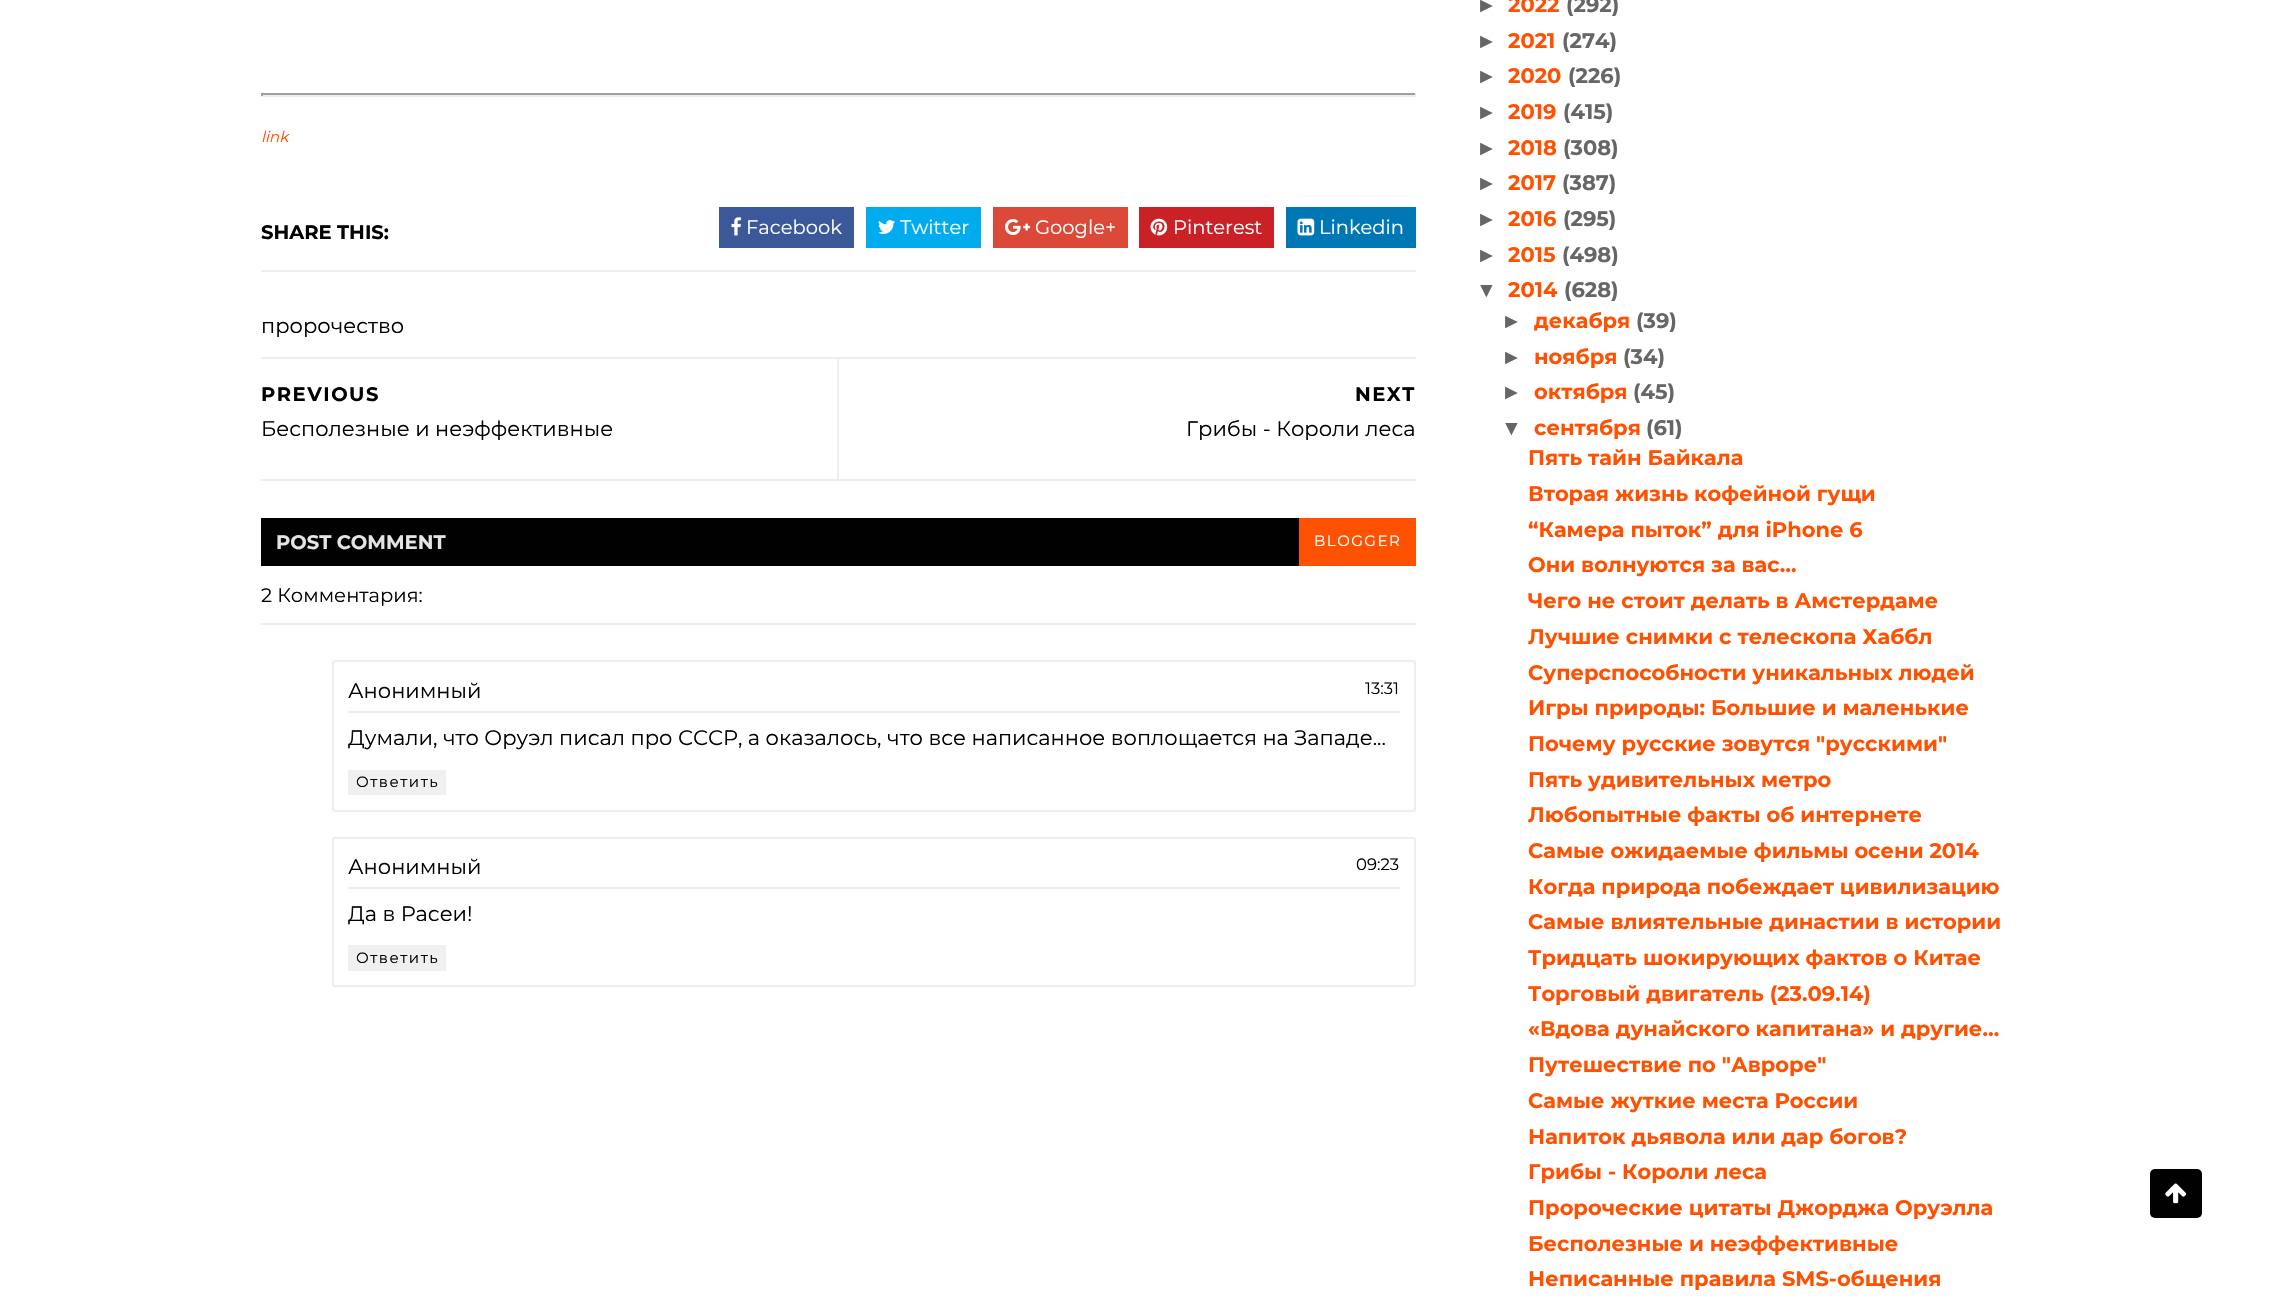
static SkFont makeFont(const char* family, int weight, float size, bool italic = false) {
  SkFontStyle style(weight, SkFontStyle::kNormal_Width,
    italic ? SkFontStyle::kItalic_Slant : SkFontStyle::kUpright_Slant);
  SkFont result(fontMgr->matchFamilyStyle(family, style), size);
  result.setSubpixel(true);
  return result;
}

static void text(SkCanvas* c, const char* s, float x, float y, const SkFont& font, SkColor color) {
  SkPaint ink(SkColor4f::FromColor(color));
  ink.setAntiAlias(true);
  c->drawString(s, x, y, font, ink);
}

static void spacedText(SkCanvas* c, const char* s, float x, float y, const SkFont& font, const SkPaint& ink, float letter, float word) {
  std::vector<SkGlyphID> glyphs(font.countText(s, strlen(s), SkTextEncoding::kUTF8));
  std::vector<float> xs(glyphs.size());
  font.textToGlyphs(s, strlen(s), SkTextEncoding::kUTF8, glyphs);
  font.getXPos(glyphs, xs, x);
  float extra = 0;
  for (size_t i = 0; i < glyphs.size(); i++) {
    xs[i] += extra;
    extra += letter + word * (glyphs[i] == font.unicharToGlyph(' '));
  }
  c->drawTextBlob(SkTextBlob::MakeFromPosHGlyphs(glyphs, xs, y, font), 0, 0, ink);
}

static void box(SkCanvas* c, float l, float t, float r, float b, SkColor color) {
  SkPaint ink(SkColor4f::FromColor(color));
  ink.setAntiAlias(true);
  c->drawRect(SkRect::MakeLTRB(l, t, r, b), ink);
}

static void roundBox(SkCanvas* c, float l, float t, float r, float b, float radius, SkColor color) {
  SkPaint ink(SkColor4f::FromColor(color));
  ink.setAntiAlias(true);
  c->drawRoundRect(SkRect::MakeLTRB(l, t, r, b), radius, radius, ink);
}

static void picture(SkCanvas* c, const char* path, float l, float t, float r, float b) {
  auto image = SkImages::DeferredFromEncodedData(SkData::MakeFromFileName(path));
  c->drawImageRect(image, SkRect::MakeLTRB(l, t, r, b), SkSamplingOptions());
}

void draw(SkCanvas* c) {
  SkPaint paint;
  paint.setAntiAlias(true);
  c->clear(0xffffffff);
  box(c, 261, 93, 1416, 95, 0xff9f9f9f);
  box(c, 1415, 93, 1416, 96, 0xffeeeeee);
  box(c, 261, 95, 1416, 97, 0xffeeeeee);
  box(c, 261, 93, 263, 96, 0xff9f9f9f);
  SkFont face1 = makeFont("Montserrat", 400, 15, true);
  text(c, "link", 261, 142, face1, 0xffff5102);
  box(c, 261, 270, 1416, 272, 0xffeeeeee);
  SkFont face2 = makeFont("Montserrat", 700, 19.5f);
  text(c, "SHARE THIS:", 261, 239, face2, 0xff010101);
  box(c, 719, 207, 854, 248, 0xff3b5998);
  picture(c, "img_01.png", 731, 217, 741, 236);
  SkFont face3 = makeFont("Montserrat", 400, 19.5f);
  text(c, "Facebook", 746, 234, face3, 0xffffffff);
  box(c, 866, 207, 981, 248, 0xff00acee);
  picture(c, "img_02.png", 878, 220, 895, 234);
  text(c, "Twitter", 900, 234, face3, 0xffffffff);
  box(c, 993, 207, 1128, 248, 0xffdb4a39);
  picture(c, "img_03.png", 1005, 219, 1031, 235);
  text(c, "Google+", 1035, 234, face3, 0xffffffff);
  box(c, 1139, 207, 1274, 248, 0xffca2127);
  picture(c, "img_04.png", 1150, 218, 1168, 236);
  text(c, "Pinterest", 1173, 234, face3, 0xffffffff);
  box(c, 1286, 207, 1416, 248, 0xff0077b5);
  picture(c, "img_05.png", 1297, 218, 1315, 236);
  text(c, "Linkedin", 1319, 234, face3, 0xffffffff);
  SkFont face4 = makeFont("Montserrat", 400, 21);
  text(c, "пророчество", 261, 333, face4, 0xff010101);
  box(c, 261, 357, 1416, 359, 0xffeeeeee);
  box(c, 261, 479, 1416, 481, 0xffeeeeee);
  box(c, 837, 359, 839, 479, 0xffeeeeee);
  paint.setColor(0xff010101);
  spacedText(c, "PREVIOUS", 261, 401, face2, paint, 1.5f, 0);
  text(c, "Бесполезные и неэффективные", 261, 436, face4, 0xff010101);
  spacedText(c, "NEXT", 1355, 401, face2, paint, 1.5f, 0);
  text(c, "Грибы - Короли леса", 1186, 436, face4, 0xff010101);
  box(c, 261, 518, 1299, 566, 0xff010101);
  text(c, "POST COMMENT", 276, 549, face2, 0xffe4e4e4);
  box(c, 1299, 518, 1416, 566, 0xffff5102);
  SkFont face5 = makeFont("Montserrat", 400, 15);
  paint.setColor(0xffffffff);
  spacedText(c, "BLOGGER", 1314, 546, face5, paint, 1.5f, 0);
  box(c, 261, 623, 1416, 625, 0xffeeeeee);
  text(c, "2 Комментария:", 261, 602, face3, 0xff010101);
  paint.setStyle(SkPaint::kStroke_Style);
  paint.setStrokeWidth(2);
  paint.setColor(0xffeeeeee);
  c->drawRoundRect(SkRect::MakeLTRB(333, 661, 1415, 811), 2, 2, paint);
  box(c, 348, 711, 1400, 713, 0xffeeeeee);
  text(c, "Анонимный", 348, 698, face4, 0xff010101);
  SkFont face6 = makeFont("Montserrat", 400, 16.5f);
  text(c, "13:31", 1365, 694, face6, 0xff010101);
  text(c, "Думали, что Оруэл писал про СССР, а оказалось, что все написанное воплощается на Западе...", 348, 745, face4, 0xff010101);
  box(c, 348, 770, 446, 795, 0xfff0f0f0);
  paint.setStyle(SkPaint::kFill_Style);
  paint.setColor(0xff010101);
  spacedText(c, "Ответить", 356, 787, face5, paint, 1.5f, 0);
  paint.setStyle(SkPaint::kStroke_Style);
  paint.setColor(0xffeeeeee);
  c->drawRoundRect(SkRect::MakeLTRB(333, 838, 1415, 986), 2, 2, paint);
  box(c, 348, 887, 1400, 889, 0xffeeeeee);
  text(c, "Анонимный", 348, 874, face4, 0xff010101);
  text(c, "09:23", 1356, 870, face6, 0xff010101);
  text(c, "Да в Расеи!", 348, 921, face4, 0xff010101);
  box(c, 348, 945, 446, 971, 0xfff0f0f0);
  paint.setStyle(SkPaint::kFill_Style);
  paint.setColor(0xff010101);
  spacedText(c, "Ответить", 356, 963, face5, paint, 1.5f, 0);
  SkFont face7 = makeFont("Liberation Sans", 700, 21);
  text(c, "►", 1476, 12, face7, 0xff666666);
  SkFont face8 = makeFont("Montserrat", 700, 21);
  text(c, "2022", 1508, 12, face8, 0xffff5102);
  text(c, "(292)", 1566, 12, face8, 0xff666666);
  text(c, "►", 1476, 48, face7, 0xff666666);
  text(c, "2021", 1508, 48, face8, 0xffff5102);
  text(c, "(274)", 1562, 48, face8, 0xff666666);
  text(c, "►", 1476, 83, face7, 0xff666666);
  text(c, "2020", 1508, 83, face8, 0xffff5102);
  text(c, "(226)", 1568, 83, face8, 0xff666666);
  text(c, "►", 1476, 119, face7, 0xff666666);
  text(c, "2019", 1508, 119, face8, 0xffff5102);
  text(c, "(415)", 1563, 119, face8, 0xff666666);
  text(c, "►", 1476, 155, face7, 0xff666666);
  text(c, "2018", 1508, 155, face8, 0xffff5102);
  text(c, "(308)", 1563, 155, face8, 0xff666666);
  text(c, "►", 1476, 190, face7, 0xff666666);
  text(c, "2017", 1508, 190, face8, 0xffff5102);
  text(c, "(387)", 1562, 190, face8, 0xff666666);
  text(c, "►", 1476, 226, face7, 0xff666666);
  text(c, "2016", 1508, 226, face8, 0xffff5102);
  text(c, "(295)", 1563, 226, face8, 0xff666666);
  text(c, "►", 1476, 262, face7, 0xff666666);
  text(c, "2015", 1508, 262, face8, 0xffff5102);
  text(c, "(498)", 1562, 262, face8, 0xff666666);
  text(c, "▼", 1476, 297, face7, 0xff666666);
  text(c, "2014", 1508, 297, face8, 0xffff5102);
  text(c, "(628)", 1564, 297, face8, 0xff666666);
  text(c, "►", 1501, 328, face7, 0xff666666);
  text(c, "декабря", 1534, 328, face8, 0xffff5102);
  text(c, "(39)", 1636, 328, face8, 0xff666666);
  text(c, "►", 1501, 364, face7, 0xff666666);
  text(c, "ноября", 1534, 364, face8, 0xffff5102);
  text(c, "(34)", 1623, 364, face8, 0xff666666);
  text(c, "►", 1501, 399, face7, 0xff666666);
  text(c, "октября", 1534, 399, face8, 0xffff5102);
  text(c, "(45)", 1633, 399, face8, 0xff666666);
  text(c, "▼", 1501, 435, face7, 0xff666666);
  text(c, "сентября", 1534, 435, face8, 0xffff5102);
  text(c, "(61)", 1646, 435, face8, 0xff666666);
  text(c, "Пять тайн Байкала", 1528, 465, face8, 0xffff5102);
  text(c, "Вторая жизнь кофейной гущи", 1528, 501, face8, 0xffff5102);
  text(c, "“Камера пыток” для iPhone 6", 1528, 537, face8, 0xffff5102);
  text(c, "Они волнуются за вас…", 1528, 572, face8, 0xffff5102);
  text(c, "Чего не стоит делать в Амстердаме", 1528, 608, face8, 0xffff5102);
  text(c, "Лучшие снимки с телескопа Хаббл", 1528, 644, face8, 0xffff5102);
  text(c, "Суперспособности уникальных людей", 1528, 680, face8, 0xffff5102);
  text(c, "Игры природы: Большие и маленькие", 1528, 715, face8, 0xffff5102);
  text(c, "Почему русские зовутся \"русскими\"", 1528, 751, face8, 0xffff5102);
  text(c, "Пять удивительных метро", 1528, 787, face8, 0xffff5102);
  text(c, "Любопытные факты об интернете", 1528, 822, face8, 0xffff5102);
  text(c, "Самые ожидаемые фильмы осени 2014", 1528, 858, face8, 0xffff5102);
  text(c, "Когда природа побеждает цивилизацию", 1528, 894, face8, 0xffff5102);
  text(c, "Самые влиятельные династии в истории", 1528, 929, face8, 0xffff5102);
  text(c, "Тридцать шокирующих фактов о Китае", 1528, 965, face8, 0xffff5102);
  text(c, "Торговый двигатель (23.09.14)", 1528, 1001, face8, 0xffff5102);
  text(c, "«Вдова дунайского капитана» и другие…", 1528, 1036, face8, 0xffff5102);
  text(c, "Путешествие по \"Авроре\"", 1528, 1072, face8, 0xffff5102);
  text(c, "Самые жуткие места России", 1528, 1108, face8, 0xffff5102);
  text(c, "Напиток дьявола или дар богов?", 1528, 1144, face8, 0xffff5102);
  text(c, "Грибы - Короли леса", 1528, 1179, face8, 0xffff5102);
  text(c, "Пророческие цитаты Джорджа Оруэлла", 1528, 1215, face8, 0xffff5102);
  text(c, "Бесполезные и неэффективные", 1528, 1251, face8, 0xffff5102);
  text(c, "Неписанные правила SMS-общения", 1528, 1286, face8, 0xffff5102);
  roundBox(c, 2150, 1169, 2202, 1218, 5, 0xff010101);
  picture(c, "img_06.png", 2165, 1183, 2186, 1204);
}
